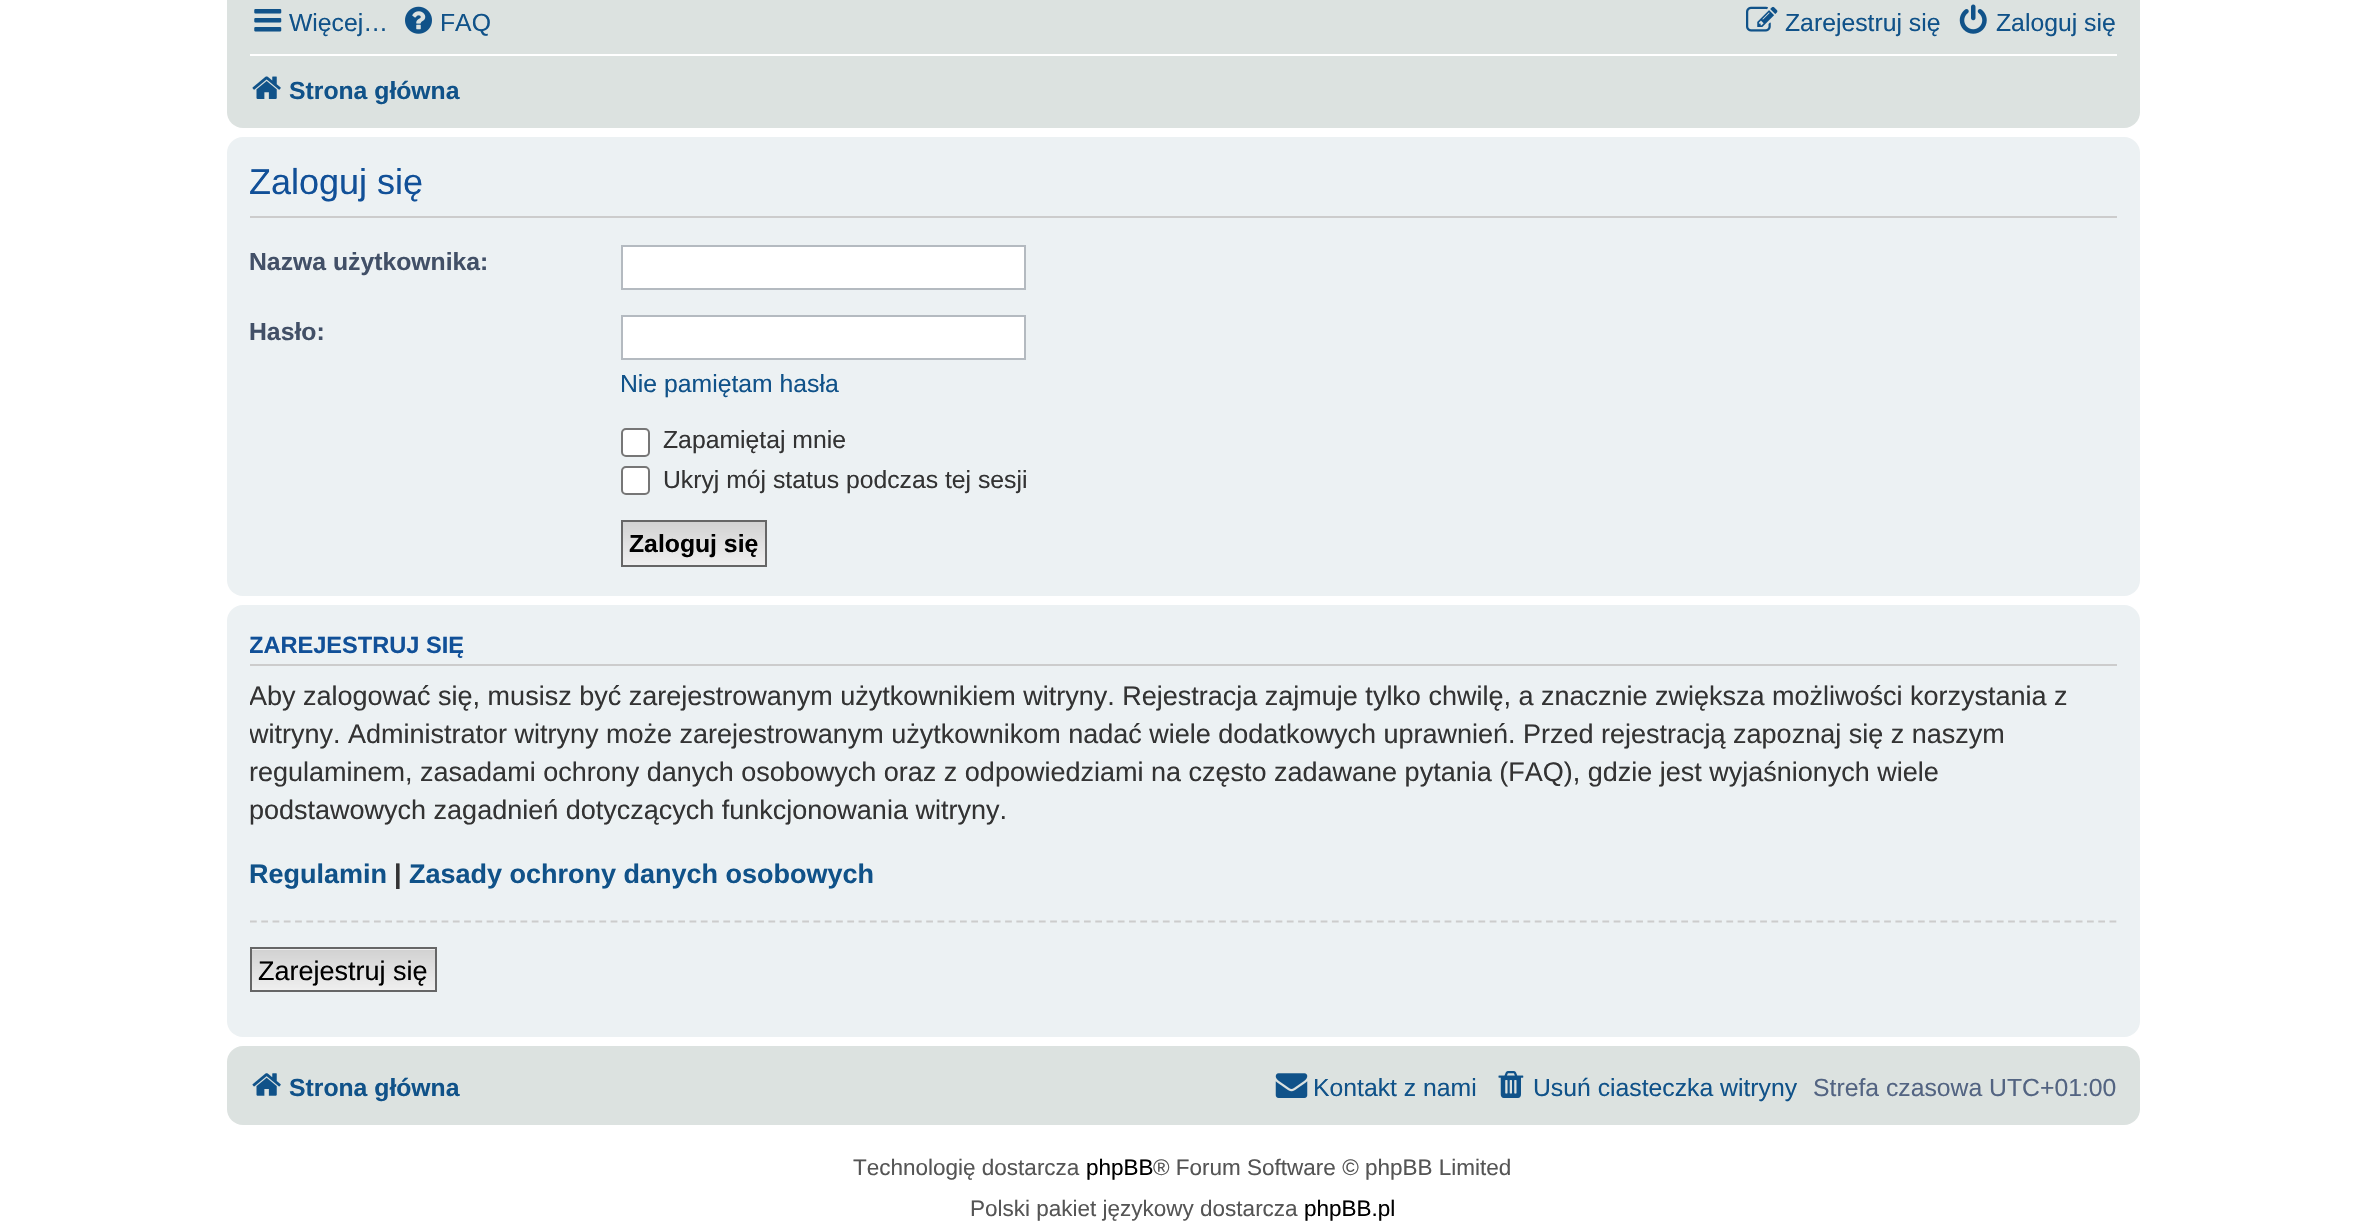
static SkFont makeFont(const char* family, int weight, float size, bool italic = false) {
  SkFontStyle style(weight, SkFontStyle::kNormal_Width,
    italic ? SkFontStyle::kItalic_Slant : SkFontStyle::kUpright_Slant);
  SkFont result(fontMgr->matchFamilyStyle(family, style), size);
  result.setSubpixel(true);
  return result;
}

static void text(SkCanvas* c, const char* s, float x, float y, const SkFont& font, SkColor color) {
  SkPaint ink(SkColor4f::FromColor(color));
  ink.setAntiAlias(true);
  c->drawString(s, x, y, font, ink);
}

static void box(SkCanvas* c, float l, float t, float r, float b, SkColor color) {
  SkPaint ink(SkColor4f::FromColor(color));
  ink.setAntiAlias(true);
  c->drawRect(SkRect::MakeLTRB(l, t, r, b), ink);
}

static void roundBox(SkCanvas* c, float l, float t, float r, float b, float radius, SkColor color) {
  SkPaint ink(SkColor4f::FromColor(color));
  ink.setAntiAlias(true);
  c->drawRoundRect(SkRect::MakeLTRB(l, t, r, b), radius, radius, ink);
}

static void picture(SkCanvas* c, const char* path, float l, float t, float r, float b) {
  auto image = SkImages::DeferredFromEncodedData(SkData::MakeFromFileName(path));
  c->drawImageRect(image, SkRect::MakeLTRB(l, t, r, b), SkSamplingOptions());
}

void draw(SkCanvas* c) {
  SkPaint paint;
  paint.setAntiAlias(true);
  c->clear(0xffffffff);
  roundBox(c, 227, -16, 2140, 128, 16, 0xffdce2e0);
  picture(c, "img_01.png", 254, 9, 282, 32);
  SkFont face1 = makeFont("Liberation Sans", 400, 24.75f);
  text(c, "Więcej…", 289, 31, face1, 0xff105289);
  picture(c, "img_02.png", 405, 6, 432, 34);
  text(c, "FAQ", 440, 31, face1, 0xff105289);
  picture(c, "img_03.png", 1746, 6, 1778, 32);
  text(c, "Zarejestruj się", 1785, 31, face1, 0xff105289);
  picture(c, "img_04.png", 1959, 4, 1987, 34);
  text(c, "Zaloguj się", 1996, 31, face1, 0xff105289);
  box(c, 250, 54, 2117, 56, 0xffffffff);
  picture(c, "img_05.png", 252, 76, 281, 99);
  SkFont face2 = makeFont("Liberation Sans", 700, 24.75f);
  text(c, "Strona główna", 289, 99, face2, 0xff105289);
  roundBox(c, 227, 137, 2140, 596, 16, 0xffecf1f3);
  box(c, 250, 216, 2117, 218, 0xffcccccc);
  c->save();
  c->clipRect(SkRect::MakeLTRB(250, 149, 2117, 585));
  SkFont face3 = makeFont("Liberation Sans", 400, 36);
  text(c, "Zaloguj się", 249, 194, face3, 0xff115098);
  c->restore();
  text(c, "Nazwa użytkownika:", 249, 270, face2, 0xff425067);
  paint.setColor(0xffffffff);
  c->drawRect(SkRect::MakeLTRB(622, 246, 1025, 289), paint);
  paint.setStyle(SkPaint::kStroke_Style);
  paint.setStrokeWidth(2);
  paint.setColor(0xffb4bac0);
  c->drawRect(SkRect::MakeLTRB(622, 246, 1025, 289), paint);
  text(c, "Hasło:", 249, 340, face2, 0xff425067);
  paint.setStyle(SkPaint::kFill_Style);
  paint.setColor(0xffffffff);
  c->drawRect(SkRect::MakeLTRB(622, 316, 1025, 359), paint);
  paint.setStyle(SkPaint::kStroke_Style);
  paint.setColor(0xffb4bac0);
  c->drawRect(SkRect::MakeLTRB(622, 316, 1025, 359), paint);
  text(c, "Nie pamiętam hasła", 620, 392, face1, 0xff105289);
  paint.setStyle(SkPaint::kFill_Style);
  paint.setColor(0xffffffff);
  c->drawRoundRect(SkRect::MakeLTRB(622, 429, 649, 456), 4, 4, paint);
  paint.setStyle(SkPaint::kStroke_Style);
  paint.setColor(0xff767676);
  c->drawRoundRect(SkRect::MakeLTRB(622, 429, 649, 456), 4, 4, paint);
  text(c, "Zapamiętaj mnie", 663, 448, face1, 0xff333333);
  paint.setStyle(SkPaint::kFill_Style);
  paint.setColor(0xffffffff);
  c->drawRoundRect(SkRect::MakeLTRB(622, 467, 649, 494), 4, 4, paint);
  paint.setStyle(SkPaint::kStroke_Style);
  paint.setColor(0xff767676);
  c->drawRoundRect(SkRect::MakeLTRB(622, 467, 649, 494), 4, 4, paint);
  text(c, "Ukryj mój status podczas tej sesji", 663, 488, face1, 0xff333333);
  paint.setStyle(SkPaint::kFill_Style);
  {
    const SkColor colors[] = {0xffd2d2d2, 0xffefefef};
    const float stops[] = {0, 1};
    const SkPoint ends[] = {{694, 522}, {694, 565}};
    paint.setShader(SkGradientShader::MakeLinear(ends, colors, stops, 2, SkTileMode::kClamp));
    paint.setAlpha(255);
  }
  c->drawRect(SkRect::MakeLTRB(623, 522, 765, 565), paint);
  paint.setStyle(SkPaint::kStroke_Style);
  paint.setShader(nullptr);
  paint.setColor(0xff666666);
  c->drawRect(SkRect::MakeLTRB(622, 521, 766, 566), paint);
  text(c, "Zaloguj się", 629, 552, face2, 0xff000000);
  roundBox(c, 227, 605, 2140, 1037, 16, 0xffecf1f3);
  box(c, 250, 664, 2117, 666, 0xffcccccc);
  c->save();
  c->clipRect(SkRect::MakeLTRB(250, 617, 2117, 1026));
  SkFont face4 = makeFont("Liberation Sans", 700, 23.6f);
  text(c, "ZAREJESTRUJ SIĘ", 249, 653, face4, 0xff115098);
  SkFont face5 = makeFont("Liberation Sans", 400, 27);
  text(c, "Aby zalogować się, musisz być zarejestrowanym użytkownikiem witryny. Rejestracja zajmuje tylko chwilę, a znacznie zwiększa możliwości korzystania z", 249, 705, face5, 0xff333333);
  text(c, "witryny. Administrator witryny może zarejestrowanym użytkownikom nadać wiele dodatkowych uprawnień. Przed rejestracją zapoznaj się z naszym", 249, 743, face5, 0xff333333);
  c->restore();
  text(c, "regulaminem, zasadami ochrony danych osobowych oraz z odpowiedziami na często zadawane pytania (FAQ), gdzie jest wyjaśnionych wiele", 249, 781, face5, 0xff333333);
  text(c, "podstawowych zagadnień dotyczących funkcjonowania witryny.", 249, 819, face5, 0xff333333);
  SkFont face6 = makeFont("Liberation Sans", 700, 27);
  text(c, "Regulamin", 249, 883, face6, 0xff105289);
  text(c, "|", 394, 883, face6, 0xff333333);
  text(c, "Zasady ochrony danych osobowych", 409, 883, face6, 0xff105289);
  paint.setStrokeWidth(2.2f);
  paint.setColor(0xffcccccc);
  paint.setPathEffect(SkDashPathEffect::Make({{6.75f, 4.52f}}, 0));
  c->drawPath(SkPathBuilder().moveTo(250, 921.5f).lineTo(2117, 921.5f).detach(), paint);
  paint.setPathEffect(nullptr);
  box(c, 252, 949, 435, 950, 0xffefefef);
  paint.setStyle(SkPaint::kFill_Style);
  {
    const SkColor colors[] = {0xffd2d2d2, 0xffefefef};
    const float stops[] = {0, 1};
    const SkPoint ends[] = {{343, 950}, {343, 990}};
    paint.setShader(SkGradientShader::MakeLinear(ends, colors, stops, 2, SkTileMode::kClamp));
    paint.setAlpha(255);
  }
  c->drawRect(SkRect::MakeLTRB(252, 950, 435, 990), paint);
  paint.setStyle(SkPaint::kStroke_Style);
  paint.setStrokeWidth(2);
  paint.setShader(nullptr);
  paint.setColor(0xff666666);
  c->drawRect(SkRect::MakeLTRB(251, 948, 436, 991), paint);
  text(c, "Zarejestruj się", 258, 980, face5, 0xff000000);
  roundBox(c, 227, 1046, 2140, 1125, 16, 0xffdce2e0);
  picture(c, "img_06.png", 252, 1073, 281, 1096);
  text(c, "Strona główna", 289, 1096, face2, 0xff105289);
  picture(c, "img_07.png", 1275, 1073, 1308, 1098);
  text(c, "Kontakt z nami", 1313, 1096, face1, 0xff105289);
  picture(c, "img_08.png", 1498, 1071, 1524, 1098);
  text(c, "Usuń ciasteczka witryny", 1533, 1096, face1, 0xff105289);
  text(c, "Strefa czasowa UTC+01:00", 1813, 1096, face1, 0xff536482);
  SkFont face7 = makeFont("Liberation Sans", 400, 22.5f);
  text(c, "Technologię dostarcza", 853, 1175, face7, 0xff555555);
  text(c, "phpBB", 1086, 1175, face7, 0xff000000);
  text(c, "® Forum Software © phpBB Limited", 1153, 1175, face7, 0xff555555);
  text(c, "Polski pakiet językowy dostarcza", 970, 1216, face7, 0xff555555);
  text(c, "phpBB.pl", 1304, 1216, face7, 0xff000000);
}
